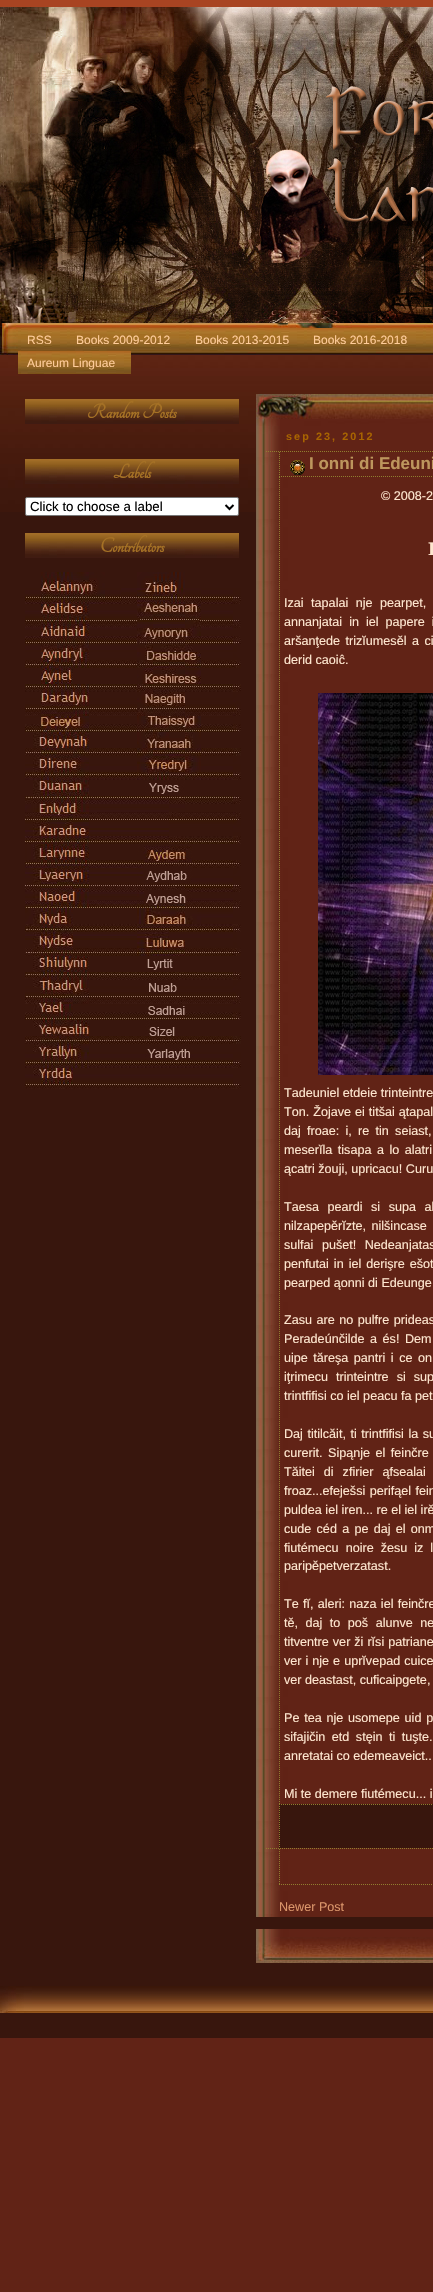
static SkFont makeFont(const char* family, int weight, float size, bool italic = false) {
  SkFontStyle style(weight, SkFontStyle::kNormal_Width,
    italic ? SkFontStyle::kItalic_Slant : SkFontStyle::kUpright_Slant);
  SkFont result(fontMgr->matchFamilyStyle(family, style), size);
  result.setSubpixel(true);
  return result;
}

static void text(SkCanvas* c, const char* s, float x, float y, const SkFont& font, SkColor color) {
  SkPaint ink(SkColor4f::FromColor(color));
  ink.setAntiAlias(true);
  c->drawString(s, x, y, font, ink);
}

static void spacedText(SkCanvas* c, const char* s, float x, float y, const SkFont& font, const SkPaint& ink, float letter, float word) {
  std::vector<SkGlyphID> glyphs(font.countText(s, strlen(s), SkTextEncoding::kUTF8));
  std::vector<float> xs(glyphs.size());
  font.textToGlyphs(s, strlen(s), SkTextEncoding::kUTF8, glyphs);
  font.getXPos(glyphs, xs, x);
  float extra = 0;
  for (size_t i = 0; i < glyphs.size(); i++) {
    xs[i] += extra;
    extra += letter + word * (glyphs[i] == font.unicharToGlyph(' '));
  }
  c->drawTextBlob(SkTextBlob::MakeFromPosHGlyphs(glyphs, xs, y, font), 0, 0, ink);
}

static void box(SkCanvas* c, float l, float t, float r, float b, SkColor color) {
  SkPaint ink(SkColor4f::FromColor(color));
  ink.setAntiAlias(true);
  c->drawRect(SkRect::MakeLTRB(l, t, r, b), ink);
}

static void picture(SkCanvas* c, const char* path, float l, float t, float r, float b) {
  auto image = SkImages::DeferredFromEncodedData(SkData::MakeFromFileName(path));
  c->drawImageRect(image, SkRect::MakeLTRB(l, t, r, b), SkSamplingOptions());
}

void draw(SkCanvas* c) {
  SkPaint paint;
  paint.setAntiAlias(true);
  c->clear(0xff612316);
  box(c, 0, 512, 433, 2038, 0xff38160d);
  picture(c, "img_01.png", 0, 0, 433, 512);
  picture(c, "img_02.png", 0, 7, 433, 323);
  picture(c, "img_03.png", 0, 323, 433, 355);
  picture(c, "img_04.png", 18, 328, 21, 350);
  picture(c, "img_05.png", 21, 328, 67, 351);
  SkFont face1 = makeFont("Liberation Sans", 400, 12);
  text(c, "RSS", 27, 344, face1, 0xffffcc99);
  picture(c, "img_04.png", 67, 328, 70, 350);
  picture(c, "img_06.png", 70, 328, 186, 351);
  text(c, "Books 2009-2012", 76, 344, face1, 0xffffcc99);
  picture(c, "img_07.png", 186, 328, 189, 351);
  picture(c, "img_08.png", 189, 328, 304, 351);
  text(c, "Books 2013-2015", 195, 344, face1, 0xffffcc99);
  picture(c, "img_04.png", 304, 328, 307, 350);
  picture(c, "img_06.png", 307, 328, 423, 351);
  text(c, "Books 2016-2018", 313, 344, face1, 0xffffcc99);
  picture(c, "img_04.png", 423, 328, 426, 350);
  picture(c, "img_09.png", 426, 328, 433, 351);
  picture(c, "img_07.png", 18, 351, 21, 374);
  picture(c, "img_10.png", 21, 351, 131, 374);
  text(c, "Aureum Linguae", 27, 367, face1, 0xffffcc99);
  picture(c, "img_11.png", 25, 399, 239, 424);
  SkFont face2 = makeFont("Tangerine", 700, 22);
  text(c, "Random Posts", 87, 418, face2, 0xffa57125);
  picture(c, "img_11.png", 25, 459, 239, 484);
  text(c, "Labels", 113, 478, face2, 0xffa57125);
  paint.setColor(0xffffffff);
  c->drawRoundRect(SkRect::MakeLTRB(25.5f, 497.5f, 238.5f, 515.5f), 1.5f, 1.5f, paint);
  paint.setStyle(SkPaint::kStroke_Style);
  paint.setStrokeWidth(1);
  paint.setColor(0xff767676);
  c->drawRoundRect(SkRect::MakeLTRB(25.5f, 497.5f, 238.5f, 515.5f), 1.5f, 1.5f, paint);
  paint.setStrokeWidth(2);
  paint.setColor(0xff000000);
  c->drawPath(SkPathBuilder().moveTo(225.5f, 505).lineTo(229.5f, 509).lineTo(233.5f, 505).detach(), paint);
  SkFont face3 = makeFont("Liberation Sans", 400, 13.25f);
  text(c, "Click to choose a label", 30, 511, face3, 0xff000000);
  picture(c, "img_11.png", 25, 533, 239, 558);
  text(c, "Contributors", 100, 552, face2, 0xffa57125);
  picture(c, "img_12.png", 25, 572, 241, 1089);
  picture(c, "img_13.png", 256, 1929, 433, 1963);
  picture(c, "img_14.png", 256, 394, 433, 426);
  picture(c, "img_15.png", 256, 426, 433, 1917);
  SkFont face4 = makeFont("Liberation Sans", 700, 10.75f);
  paint.setStyle(SkPaint::kFill_Style);
  paint.setColor(0xffa86400);
  spacedText(c, "sep 23, 2012", 286, 440, face4, paint, 2.1f, 0);
  paint.setStyle(SkPaint::kStroke_Style);
  paint.setStrokeWidth(1);
  paint.setColor(0xff907e2f);
  paint.setPathEffect(SkDashPathEffect::Make({{1, 1}}, 0));
  c->drawPath(SkPathBuilder().moveTo(266, 451.5f).lineTo(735, 451.5f).detach(), paint);
  paint.setPathEffect(nullptr);
  paint.setPathEffect(SkDashPathEffect::Make({{1, 1}}, 0));
  c->drawPath(SkPathBuilder().moveTo(266, 1848.5f).lineTo(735, 1848.5f).detach(), paint);
  paint.setPathEffect(nullptr);
  picture(c, "img_16.png", 290, 460, 305, 475);
  paint.setPathEffect(SkDashPathEffect::Make({{1, 1}}, 0));
  c->drawPath(SkPathBuilder().moveTo(279, 476.5f).lineTo(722, 476.5f).detach(), paint);
  paint.setPathEffect(nullptr);
  paint.setPathEffect(SkDashPathEffect::Make({{1, 1}}, 0));
  c->drawPath(SkPathBuilder().moveTo(279.5f, 452).lineTo(279.5f, 477).detach(), paint);
  paint.setPathEffect(nullptr);
  SkFont face5 = makeFont("Liberation Sans", 700, 17);
  text(c, "I onni di Edeuni", 309, 469, face5, 0xffbd965d);
  paint.setPathEffect(SkDashPathEffect::Make({{1, 1}}, 0));
  c->drawPath(SkPathBuilder().moveTo(279.5f, 477).lineTo(279.5f, 1804).detach(), paint);
  paint.setPathEffect(nullptr);
  SkFont face6 = makeFont("Liberation Sans", 400, 12.6f);
  text(c, "© 2008-2", 381, 500, face6, 0xfffee6cf);
  SkFont face7 = makeFont("Liberation Serif", 700, 19);
  text(c, "I", 428, 555, face7, 0xfffee6cf);
  paint.setStyle(SkPaint::kFill_Style);
  paint.setColor(0xfffee6cf);
  spacedText(c, "Izai tapalai nje pearpet,", 284, 607, face6, paint, 0, 4);
  spacedText(c, "annanjatai in iel papere i", 284, 626, face6, paint, 0, 3.5f);
  spacedText(c, "aršanţede trizĭumesěl a ci", 284, 645, face6, paint, 0, 2);
  text(c, "derid caoiĉ.", 284, 664, face6, 0xfffee6cf);
  picture(c, "img_17.png", 318, 693, 433, 1075);
  text(c, "Tadeuniel etdeie trinteintre", 284, 1097, face6, 0xfffee6cf);
  spacedText(c, "Ton. Žojave ei titšai ątapal", 284, 1116, face6, paint, 0, 0.5f);
  spacedText(c, "daj froae: i, re tin seiast,", 284, 1135, face6, paint, 0, 2.75f);
  spacedText(c, "meserĭla tisapa a lo alatri", 284, 1154, face6, paint, 0, 2);
  text(c, "ącatri žouji, upricacu! Curu", 284, 1173, face6, 0xfffee6cf);
  spacedText(c, "Taesa peardi si supa al", 284, 1211, face6, paint, 0, 5);
  spacedText(c, "nilzapepěrĭzte, nilšincase", 284, 1230, face6, paint, 0, 2);
  spacedText(c, "sulfai pušet! Nedeanjatas", 284, 1249, face6, paint, 0, 5);
  spacedText(c, "penfutai in iel derişre ešot", 284, 1268, face6, paint, 0, 1.5f);
  text(c, "pearped ąonni di Edeunge", 284, 1287, face6, 0xfffee6cf);
  spacedText(c, "Zasu are no pulfre prideas", 284, 1324, face6, paint, 0, 1);
  spacedText(c, "Peradeúnčilde a és! Dem", 284, 1343, face6, paint, 0, 2);
  spacedText(c, "uipe tăreşa pantri i ce on", 284, 1362, face6, paint, 0, 2);
  spacedText(c, "iţrimecu trinteintre si sup", 284, 1381, face6, paint, 0, 4.5f);
  text(c, "trintfifisi co iel peacu fa pet", 284, 1400, face6, 0xfffee6cf);
  spacedText(c, "Daj titilcăit, ti trintfifisi la su", 284, 1438, face6, paint, 0, 1);
  spacedText(c, "curerit. Sipąnje el feinčre", 284, 1457, face6, paint, 0, 2);
  spacedText(c, "Tăitei di zfirier ąfsealai", 284, 1476, face6, paint, 0, 5.5f);
  spacedText(c, "froaz...efeješsi perifąel fein", 284, 1495, face6, paint, 0, 1);
  text(c, "puldea iel iren... re el iel irě", 284, 1514, face6, 0xfffee6cf);
  spacedText(c, "cude céd a pe daj el onm", 284, 1533, face6, paint, 0, 1.75f);
  spacedText(c, "fiutémecu noire žesu iz l", 284, 1552, face6, paint, 0, 3.5f);
  text(c, "paripěpetverzatast.", 284, 1570, face6, 0xfffee6cf);
  spacedText(c, "Te fĭ, aleri: naza iel feinčre", 284, 1608, face6, paint, 0, 0.75f);
  spacedText(c, "tě, daj to poš alunve ne", 284, 1627, face6, paint, 0, 4);
  spacedText(c, "titventre ver ži rĭsi patriane", 284, 1646, face6, paint, 0, 0.5f);
  spacedText(c, "ver i nje e uprĭvepad cuice", 284, 1665, face6, paint, 0, 0.5f);
  text(c, "ver deastast, cuficaipgete,", 284, 1684, face6, 0xfffee6cf);
  spacedText(c, "Pe tea nje usomepe uid p", 284, 1722, face6, paint, 0, 1.25f);
  spacedText(c, "sifajičin etd stęin ti tuşte.", 284, 1741, face6, paint, 0, 3);
  text(c, "anretatai co edemeaveict..", 284, 1760, face6, 0xfffee6cf);
  text(c, "Mi te demere fiutémecu... i", 284, 1798, face6, 0xfffee6cf);
  box(c, 279, 1804, 433, 1848, 0xff38160d);
  paint.setStyle(SkPaint::kStroke_Style);
  paint.setColor(0xff907e2f);
  paint.setPathEffect(SkDashPathEffect::Make({{1, 1}}, 0));
  c->drawPath(SkPathBuilder().moveTo(279, 1804.5f).lineTo(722, 1804.5f).detach(), paint);
  paint.setPathEffect(nullptr);
  paint.setPathEffect(SkDashPathEffect::Make({{1, 1}}, 0));
  c->drawPath(SkPathBuilder().moveTo(279.5f, 1804).lineTo(279.5f, 1848).detach(), paint);
  paint.setPathEffect(nullptr);
  paint.setPathEffect(SkDashPathEffect::Make({{1, 1}}, 0));
  c->drawPath(SkPathBuilder().moveTo(279, 1884.5f).lineTo(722, 1884.5f).detach(), paint);
  paint.setPathEffect(nullptr);
  paint.setPathEffect(SkDashPathEffect::Make({{1, 1}}, 0));
  c->drawPath(SkPathBuilder().moveTo(279.5f, 1849).lineTo(279.5f, 1885).detach(), paint);
  paint.setPathEffect(nullptr);
  text(c, "Newer Post", 279, 1911, face6, 0xffdb956a);
  picture(c, "img_18.png", 0, 1986, 433, 2013);
}
